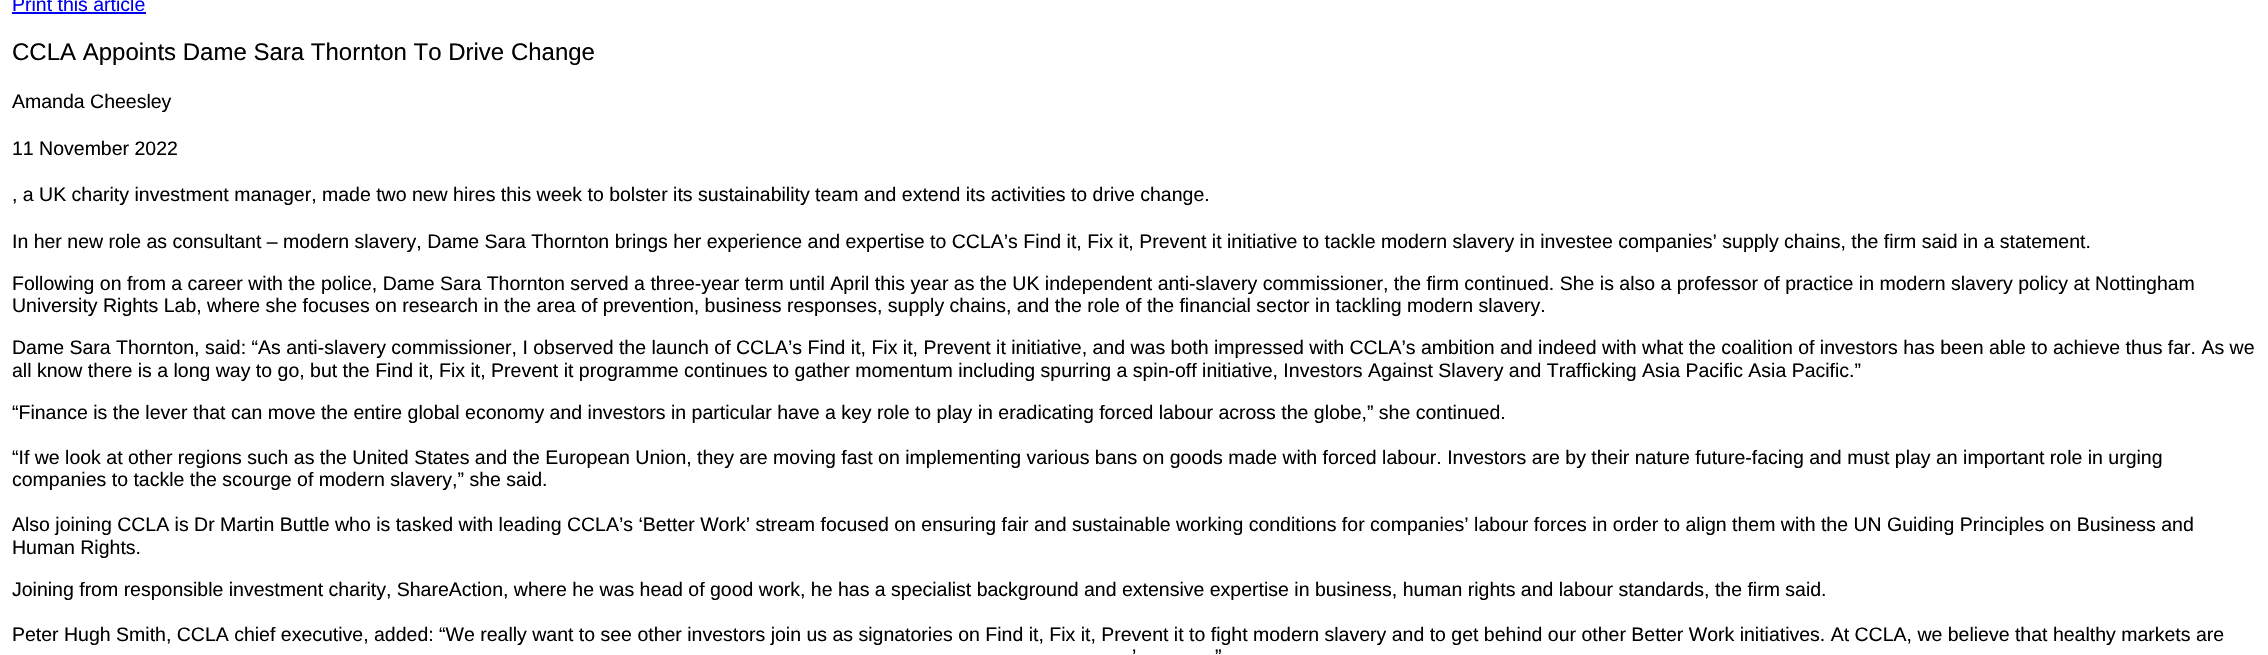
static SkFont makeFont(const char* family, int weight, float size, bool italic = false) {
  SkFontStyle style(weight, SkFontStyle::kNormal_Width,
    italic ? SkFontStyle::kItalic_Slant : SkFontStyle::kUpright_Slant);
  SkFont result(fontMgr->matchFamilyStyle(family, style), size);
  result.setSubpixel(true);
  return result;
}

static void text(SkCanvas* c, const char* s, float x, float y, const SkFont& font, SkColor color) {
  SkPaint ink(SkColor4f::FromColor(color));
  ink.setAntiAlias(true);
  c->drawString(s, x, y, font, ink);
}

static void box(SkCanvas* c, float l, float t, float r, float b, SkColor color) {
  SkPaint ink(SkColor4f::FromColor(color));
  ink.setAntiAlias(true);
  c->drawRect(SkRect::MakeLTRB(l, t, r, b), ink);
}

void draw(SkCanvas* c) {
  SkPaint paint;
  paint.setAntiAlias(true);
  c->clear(0xffffffff);
  SkFont face1 = makeFont("Liberation Sans", 400, 19.5f);
  text(c, "Print this article", 12, 11, face1, 0xff0000ee);
  box(c, 12, 12, 146, 14, 0xff0000ee);
  SkFont face2 = makeFont("Liberation Sans", 400, 24);
  text(c, "CCLA Appoints Dame Sara Thornton To Drive Change", 12, 60, face2, 0xff000000);
  text(c, "Amanda Cheesley", 12, 108, face1, 0xff000000);
  text(c, "11 November 2022", 12, 155, face1, 0xff000000);
  text(c, ", a UK charity investment manager, made two new hires this week to bolster its sustainability team and extend its activities to drive change.", 12, 201, face1, 0xff000000);
  text(c, "In her new role as consultant – modern slavery, Dame Sara Thornton brings her experience and expertise to CCLA’s Find it, Fix it, Prevent it initiative to tackle modern slavery in investee companies’ supply chains, the firm said in a statement.", 12, 248, face1, 0xff000000);
  text(c, "Following on from a career with the police, Dame Sara Thornton served a three-year term until April this year as the UK independent anti-slavery commissioner, the firm continued. She is also a professor of practice in modern slavery policy at Nottingham", 12, 290, face1, 0xff000000);
  text(c, "University Rights Lab, where she focuses on research in the area of prevention, business responses, supply chains, and the role of the financial sector in tackling modern slavery.", 12, 312, face1, 0xff000000);
  text(c, "Dame Sara Thornton, said: “As anti-slavery commissioner, I observed the launch of CCLA’s Find it, Fix it, Prevent it initiative, and was both impressed with CCLA’s ambition and indeed with what the coalition of investors has been able to achieve thus far. As we", 12, 354, face1, 0xff000000);
  text(c, "all know there is a long way to go, but the Find it, Fix it, Prevent it programme continues to gather momentum including spurring a spin-off initiative, Investors Against Slavery and Trafficking Asia Pacific Asia Pacific.”", 12, 377, face1, 0xff000000);
  text(c, "“Finance is the lever that can move the entire global economy and investors in particular have a key role to play in eradicating forced labour across the globe,” she continued.", 12, 419, face1, 0xff000000);
  text(c, "“If we look at other regions such as the United States and the European Union, they are moving fast on implementing various bans on goods made with forced labour. Investors are by their nature future-facing and must play an important role in urging", 12, 464, face1, 0xff000000);
  text(c, "companies to tackle the scourge of modern slavery,” she said.", 12, 486, face1, 0xff000000);
  text(c, "Also joining CCLA is Dr Martin Buttle who is tasked with leading CCLA’s ‘Better Work’ stream focused on ensuring fair and sustainable working conditions for companies’ labour forces in order to align them with the UN Guiding Principles on Business and", 12, 531, face1, 0xff000000);
  text(c, "Human Rights.", 12, 554, face1, 0xff000000);
  text(c, "Joining from responsible investment charity, ShareAction, where he was head of good work, he has a specialist background and extensive expertise in business, human rights and labour standards, the firm said.", 12, 596, face1, 0xff000000);
  text(c, "Peter Hugh Smith, CCLA chief executive, added: “We really want to see other investors join us as signatories on Find it, Fix it, Prevent it to fight modern slavery and to get behind our other Better Work initiatives. At CCLA, we believe that healthy markets are", 12, 641, face1, 0xff000000);
  text(c, "’", 1132, 663, face1, 0xff000000);
  text(c, "”", 1215, 663, face1, 0xff000000);
}
